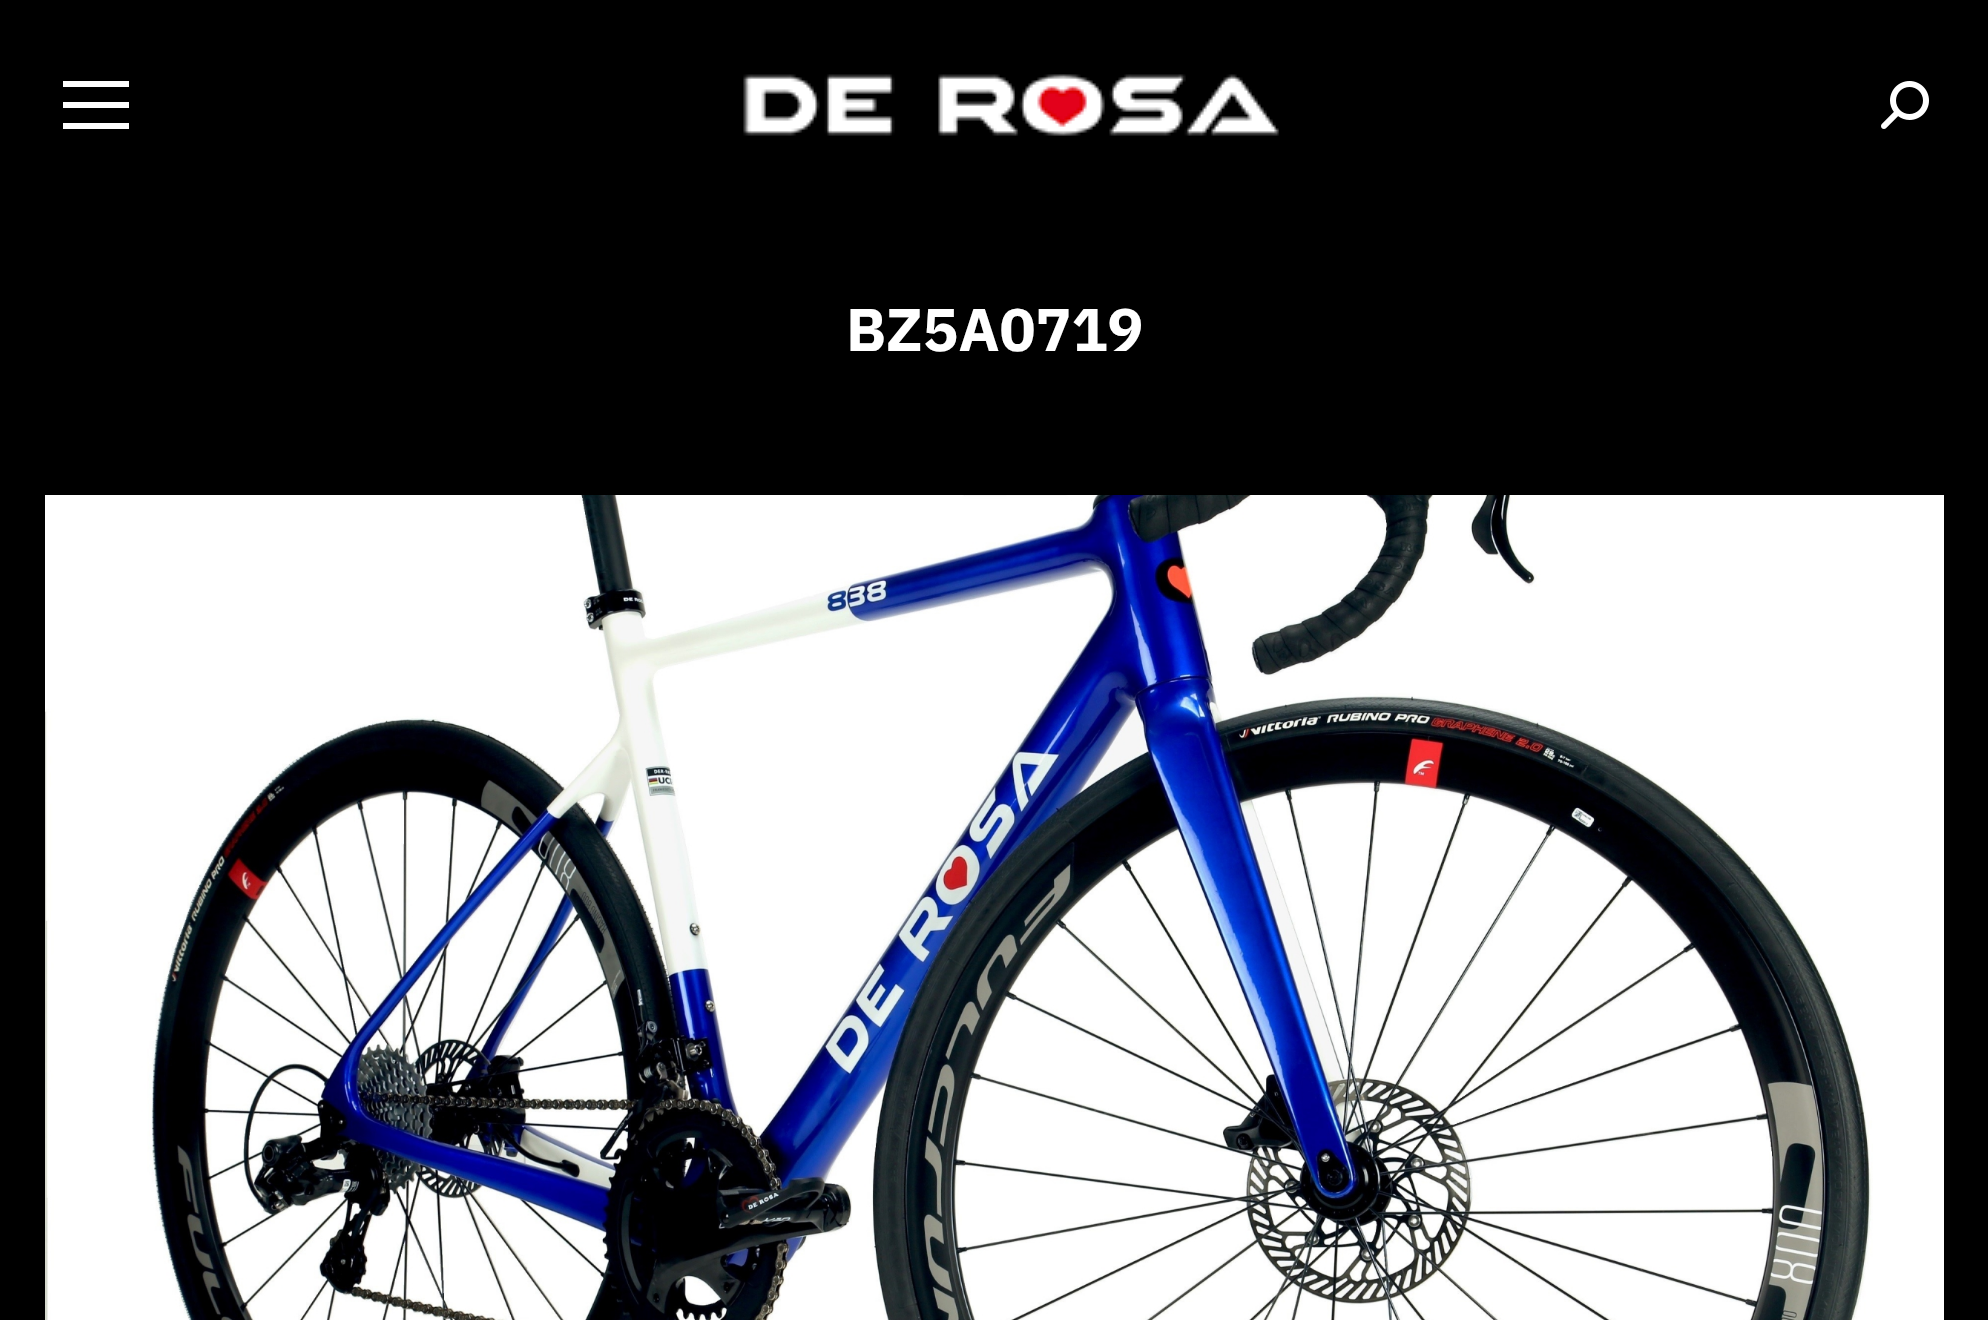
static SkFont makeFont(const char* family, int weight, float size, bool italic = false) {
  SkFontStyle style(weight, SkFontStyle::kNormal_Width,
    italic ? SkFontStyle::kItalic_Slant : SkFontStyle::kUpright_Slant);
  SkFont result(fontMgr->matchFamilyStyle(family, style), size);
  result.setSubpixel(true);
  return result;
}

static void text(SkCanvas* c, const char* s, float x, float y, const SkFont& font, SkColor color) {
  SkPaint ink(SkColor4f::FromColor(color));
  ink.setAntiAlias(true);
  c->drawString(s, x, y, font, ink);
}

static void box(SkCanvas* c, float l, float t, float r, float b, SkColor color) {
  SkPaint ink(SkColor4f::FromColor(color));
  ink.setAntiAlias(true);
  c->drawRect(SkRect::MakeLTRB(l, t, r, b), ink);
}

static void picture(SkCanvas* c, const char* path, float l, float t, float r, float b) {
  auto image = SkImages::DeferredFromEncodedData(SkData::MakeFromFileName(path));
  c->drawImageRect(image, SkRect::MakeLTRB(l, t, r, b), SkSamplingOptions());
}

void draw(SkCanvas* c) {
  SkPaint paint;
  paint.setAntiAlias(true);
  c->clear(0xff000000);
  box(c, 63, 81, 129, 87, 0xffffffff);
  box(c, 63, 102, 129, 108, 0xffffffff);
  box(c, 63, 123, 129, 129, 0xffffffff);
  picture(c, "img_01.png", 743, 74, 1279, 136);
  picture(c, "img_02.png", 1881, 81, 1929, 129);
  SkFont face1 = makeFont("IBM Plex Sans", 700, 60);
  text(c, "BZ5A0719", 846, 351, face1, 0xffffffff);
  picture(c, "img_03.png", 45, 495, 1944, 1320);
}
